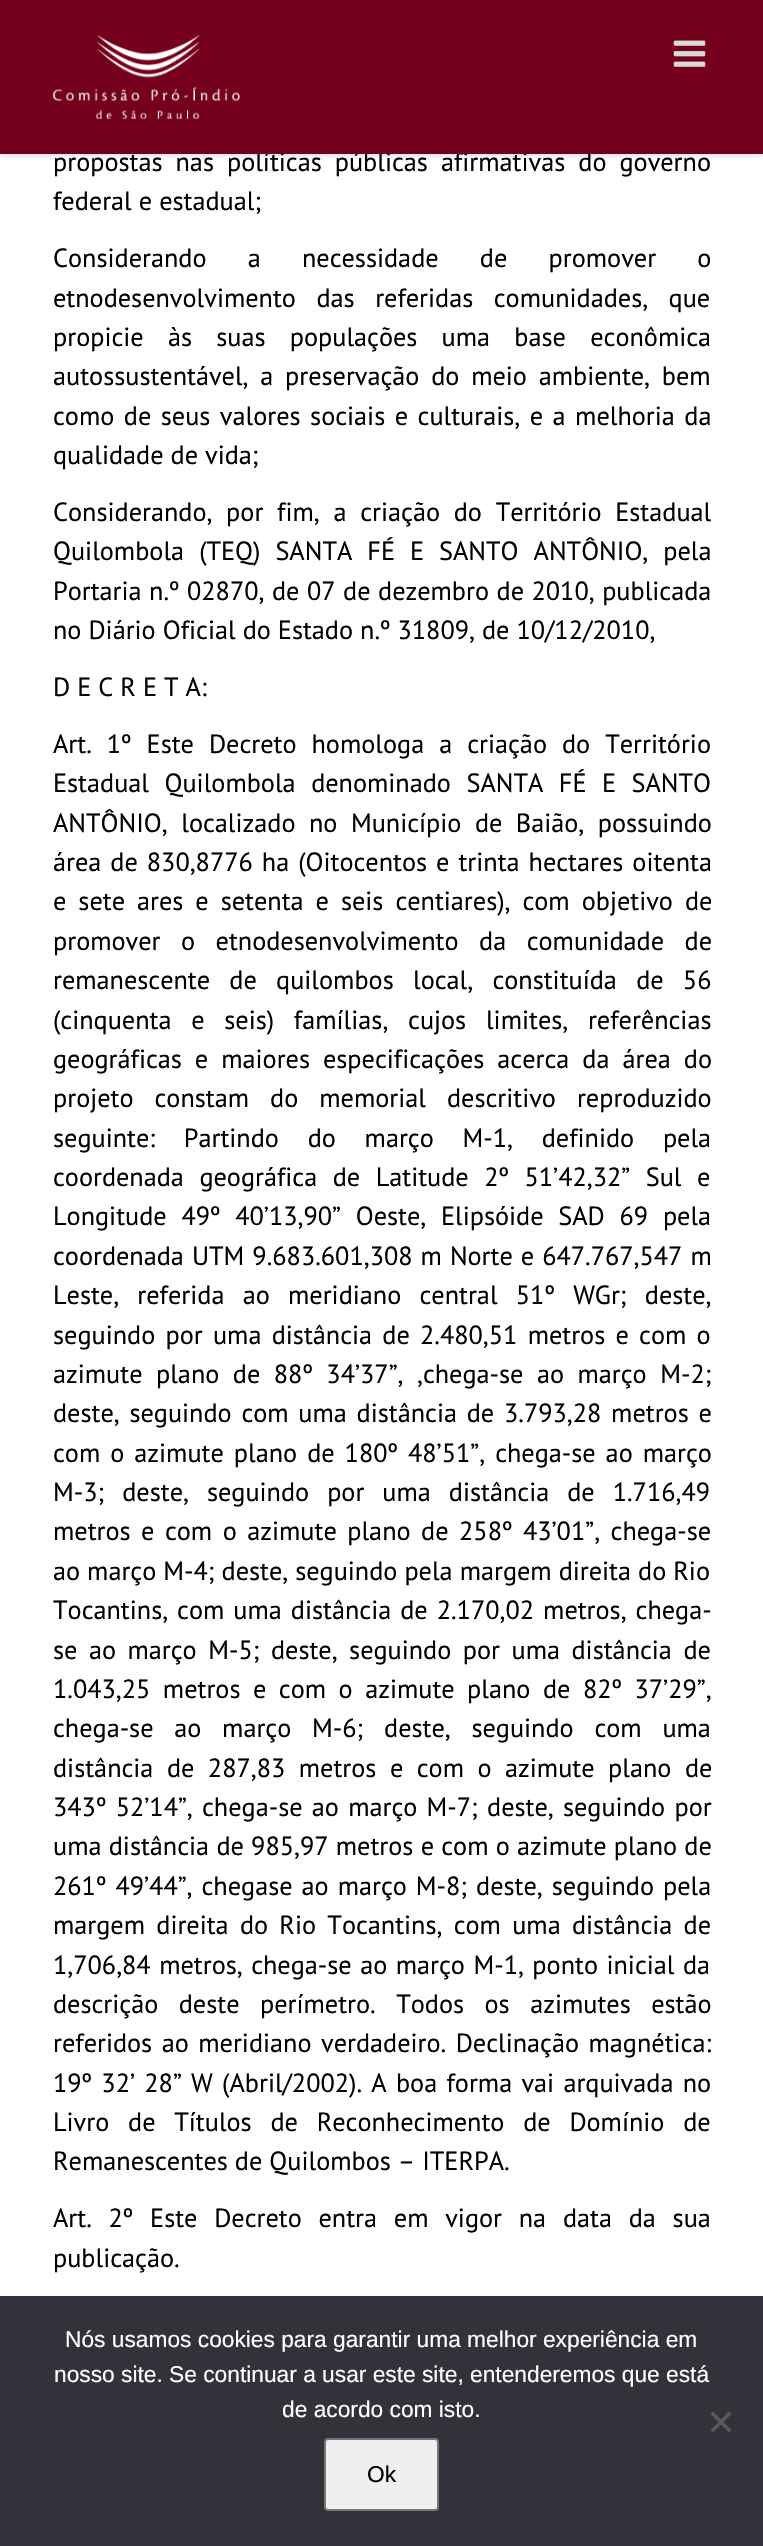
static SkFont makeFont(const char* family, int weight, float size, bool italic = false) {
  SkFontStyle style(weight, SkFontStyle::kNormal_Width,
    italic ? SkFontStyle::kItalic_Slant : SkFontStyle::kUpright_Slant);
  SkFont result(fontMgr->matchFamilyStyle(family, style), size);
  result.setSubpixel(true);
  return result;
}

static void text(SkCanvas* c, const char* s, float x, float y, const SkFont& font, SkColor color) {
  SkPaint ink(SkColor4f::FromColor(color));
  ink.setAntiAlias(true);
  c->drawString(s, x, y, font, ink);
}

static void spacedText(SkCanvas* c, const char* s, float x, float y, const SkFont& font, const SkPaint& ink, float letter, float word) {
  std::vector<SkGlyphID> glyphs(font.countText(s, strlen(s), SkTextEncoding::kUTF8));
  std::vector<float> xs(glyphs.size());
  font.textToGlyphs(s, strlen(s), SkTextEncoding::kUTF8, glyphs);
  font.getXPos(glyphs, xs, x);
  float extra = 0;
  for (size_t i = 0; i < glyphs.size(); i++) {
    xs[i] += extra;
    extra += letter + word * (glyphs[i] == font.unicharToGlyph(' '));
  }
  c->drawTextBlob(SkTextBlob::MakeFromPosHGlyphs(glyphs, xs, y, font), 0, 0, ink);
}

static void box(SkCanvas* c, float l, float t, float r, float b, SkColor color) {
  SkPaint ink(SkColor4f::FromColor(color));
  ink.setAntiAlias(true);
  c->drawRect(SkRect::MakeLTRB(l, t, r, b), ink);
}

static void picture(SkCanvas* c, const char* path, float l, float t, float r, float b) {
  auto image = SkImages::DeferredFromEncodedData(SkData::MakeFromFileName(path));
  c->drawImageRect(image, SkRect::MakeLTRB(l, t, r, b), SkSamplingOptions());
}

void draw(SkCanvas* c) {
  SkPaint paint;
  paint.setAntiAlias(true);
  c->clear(0xffffffff);
  paint.setColor(0x1f000000);
  paint.setMaskFilter(SkMaskFilter::MakeBlur(kNormal_SkBlurStyle, 2.5f));
  c->drawRect(SkRect::MakeLTRB(0, 2, 763, 156), paint);
  paint.setMaskFilter(nullptr);
  SkFont face1 = makeFont("PT Sans", 400, 26.25f);
  paint.setColor(0xff000000);
  spacedText(c, "propostas nas políticas públicas afirmativas do governo", 53, 171, face1, paint, 0, 6);
  box(c, 0, 0, 763, 154, 0xff74001c);
  picture(c, "img_01.png", 52, 35, 240, 119);
  picture(c, "img_02.png", 673, 40, 706, 67);
  text(c, "federal e estadual;", 53, 210, face1, 0xff000000);
  spacedText(c, "Considerando a necessidade de promover o", 53, 267, face1, paint, 0, 34.25f);
  spacedText(c, "etnodesenvolvimento das referidas comunidades, que", 53, 307, face1, paint, 0, 13.5f);
  spacedText(c, "propicie às suas populações uma base econômica", 53, 346, face1, paint, 0, 17.25f);
  spacedText(c, "autossustentável, a preservação do meio ambiente, bem", 53, 385, face1, paint, 0, 4.75f);
  spacedText(c, "como de seus valores sociais e culturais, e a melhoria da", 53, 425, face1, paint, 0, 2.5f);
  text(c, "qualidade de vida;", 53, 464, face1, 0xff000000);
  spacedText(c, "Considerando, por fim, a criação do Território Estadual", 53, 521, face1, paint, 0, 6.75f);
  spacedText(c, "Quilombola (TEQ) SANTA FÉ E SANTO ANTÔNIO, pela", 53, 560, face1, paint, 0, 8);
  spacedText(c, "Portaria n.º 02870, de 07 de dezembro de 2010, publicada", 53, 600, face1, paint, 0, 0.5f);
  text(c, "no Diário Oficial do Estado n.º 31809, de 10/12/2010,", 53, 639, face1, 0xff000000);
  text(c, "D E C R E T A:", 53, 696, face1, 0xff000000);
  spacedText(c, "Art. 1º Este Decreto homologa a criação do Território", 53, 753, face1, paint, 0, 8);
  spacedText(c, "Estadual Quilombola denominado SANTA FÉ E SANTO", 53, 792, face1, paint, 0, 8.5f);
  spacedText(c, "ANTÔNIO, localizado no Município de Baião, possuindo", 53, 832, face1, paint, 0, 6.5f);
  spacedText(c, "área de 830,8776 ha (Oitocentos e trinta hectares oitenta", 53, 871, face1, paint, 0, 2);
  spacedText(c, "e sete ares e setenta e seis centiares), com objetivo de", 53, 910, face1, paint, 0, 5);
  spacedText(c, "promover o etnodesenvolvimento da comunidade de", 53, 950, face1, paint, 0, 13.5f);
  spacedText(c, "remanescente de quilombos local, constituída de 56", 53, 989, face1, paint, 0, 12.25f);
  spacedText(c, "(cinquenta e seis) famílias, cujos limites, referências", 53, 1029, face1, paint, 0, 12.75f);
  spacedText(c, "geográficas e maiores especificações acerca da área do", 53, 1068, face1, paint, 0, 6);
  spacedText(c, "projeto constam do memorial descritivo reproduzido", 53, 1107, face1, paint, 0, 14);
  spacedText(c, "seguinte: Partindo do março M-1, definido pela", 53, 1147, face1, paint, 0, 21.75f);
  spacedText(c, "coordenada geográfica de Latitude 2º 51’42,32” Sul e", 53, 1186, face1, paint, 0, 8.5f);
  spacedText(c, "Longitude 49º 40’13,90” Oeste, Elipsóide SAD 69 pela", 53, 1225, face1, paint, 0, 7.75f);
  spacedText(c, "coordenada UTM 9.683.601,308 m Norte e 647.767,547 m", 53, 1265, face1, paint, 0, 1);
  spacedText(c, "Leste, referida ao meridiano central 51º WGr; deste,", 53, 1304, face1, paint, 0, 11.25f);
  spacedText(c, "seguindo por uma distância de 2.480,51 metros e com o", 53, 1344, face1, paint, 0, 3.25f);
  spacedText(c, "azimute plano de 88º 34’37”, ,chega-se ao março M-2;", 53, 1383, face1, paint, 0, 6.5f);
  spacedText(c, "deste, seguindo com uma distância de 3.793,28 metros e", 53, 1422, face1, paint, 0, 2.75f);
  spacedText(c, "com o azimute plano de 180º 48’51”, chega-se ao março", 53, 1462, face1, paint, 0, 3);
  spacedText(c, "M-3; deste, seguindo por uma distância de 1.716,49", 53, 1501, face1, paint, 0, 11);
  spacedText(c, "metros e com o azimute plano de 258º 43’01”, chega-se", 53, 1540, face1, paint, 0, 3.5f);
  text(c, "ao março M-4; deste, seguindo pela margem direita do Rio", 53, 1580, face1, 0xff000000);
  spacedText(c, "Tocantins, com uma distância de 2.170,02 metros, chega-", 53, 1619, face1, paint, 0, 2);
  spacedText(c, "se ao março M-5; deste, seguindo por uma distância de", 53, 1659, face1, paint, 0, 4.5f);
  spacedText(c, "1.043,25 metros e com o azimute plano de 82º 37’29”,", 53, 1698, face1, paint, 0, 5.5f);
  spacedText(c, "chega-se ao março M-6; deste, seguindo com uma", 53, 1737, face1, paint, 0, 13.75f);
  spacedText(c, "distância de 287,83 metros e com o azimute plano de", 53, 1777, face1, paint, 0, 6.5f);
  spacedText(c, "343º 52’14”, chega-se ao março M-7; deste, seguindo por", 53, 1816, face1, paint, 0, 2.25f);
  spacedText(c, "uma distância de 985,97 metros e com o azimute plano de", 53, 1855, face1, paint, 0, 0.25f);
  spacedText(c, "261º 49’44”, chegase ao março M-8; deste, seguindo pela", 53, 1895, face1, paint, 0, 2);
  spacedText(c, "margem direita do Rio Tocantins, com uma distância de", 53, 1934, face1, paint, 0, 4.25f);
  spacedText(c, "1,706,84 metros, chega-se ao março M-1, ponto inicial da", 53, 1974, face1, paint, 0, 1.5f);
  spacedText(c, "descrição deste perímetro. Todos os azimutes estão", 53, 2013, face1, paint, 0, 13.5f);
  spacedText(c, "referidos ao meridiano verdadeiro. Declinação magnética:", 53, 2052, face1, paint, 0, 2.5f);
  spacedText(c, "19º 32’ 28” W (Abril/2002). A boa forma vai arquivada no", 53, 2092, face1, paint, 0, 2.25f);
  spacedText(c, "Livro de Títulos de Reconhecimento de Domínio de", 53, 2131, face1, paint, 0, 11.75f);
  text(c, "Remanescentes de Quilombos – ITERPA.", 53, 2170, face1, 0xff000000);
  spacedText(c, "Art. 2º Este Decreto entra em vigor na data da sua", 53, 2227, face1, paint, 0, 9.75f);
  text(c, "publicação.", 53, 2267, face1, 0xff000000);
  box(c, 0, 2296, 763, 2546, 0xff32323a);
  SkFont face2 = makeFont("Liberation Sans", 400, 22.75f);
  text(c, "Nós usamos cookies para garantir uma melhor experiência em", 65, 2347, face2, 0xffffffff);
  text(c, "nosso site. Se continuar a usar este site, entenderemos que está", 54, 2382, face2, 0xffffffff);
  text(c, "de acordo com isto.", 282, 2417, face2, 0xffffffff);
  paint.setColor(0xff59595d);
  c->drawPath(SkPathBuilder().moveTo(729, 2411.5f).lineTo(731.5f, 2414).lineTo(713, 2432.5f).lineTo(710.5f, 2430).close().detach(), paint);
  c->drawPath(SkPathBuilder().moveTo(710.5f, 2414).lineTo(713, 2411.5f).lineTo(731.5f, 2430).lineTo(729, 2432.5f).close().detach(), paint);
  paint.setColor(0xffefefef);
  c->drawRoundRect(SkRect::MakeLTRB(325, 2439, 438, 2510), 3, 3, paint);
  paint.setStyle(SkPaint::kStroke_Style);
  paint.setStrokeWidth(2);
  paint.setColor(0xff767676);
  c->drawRoundRect(SkRect::MakeLTRB(325, 2439, 438, 2510), 3, 3, paint);
  text(c, "Ok", 367, 2482, face2, 0xff000000);
}
